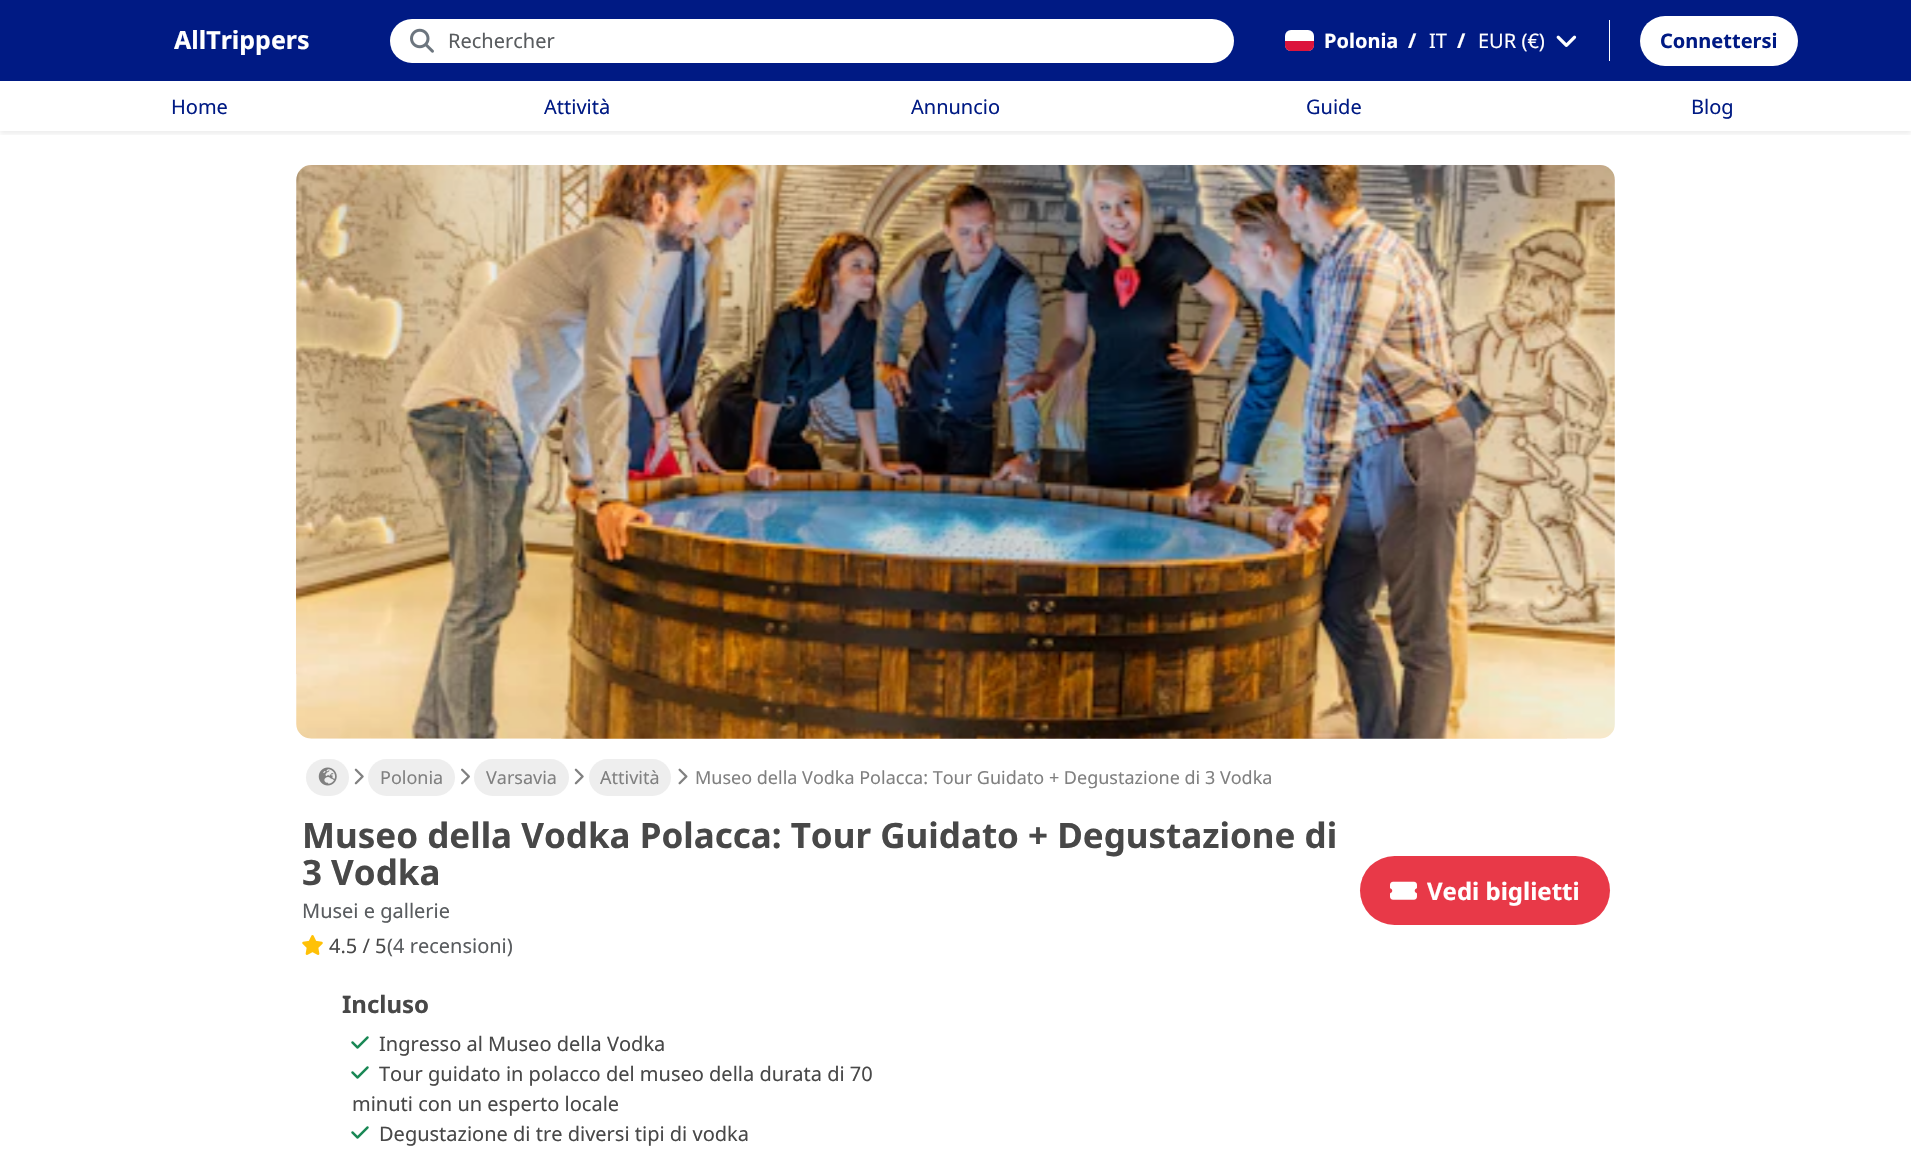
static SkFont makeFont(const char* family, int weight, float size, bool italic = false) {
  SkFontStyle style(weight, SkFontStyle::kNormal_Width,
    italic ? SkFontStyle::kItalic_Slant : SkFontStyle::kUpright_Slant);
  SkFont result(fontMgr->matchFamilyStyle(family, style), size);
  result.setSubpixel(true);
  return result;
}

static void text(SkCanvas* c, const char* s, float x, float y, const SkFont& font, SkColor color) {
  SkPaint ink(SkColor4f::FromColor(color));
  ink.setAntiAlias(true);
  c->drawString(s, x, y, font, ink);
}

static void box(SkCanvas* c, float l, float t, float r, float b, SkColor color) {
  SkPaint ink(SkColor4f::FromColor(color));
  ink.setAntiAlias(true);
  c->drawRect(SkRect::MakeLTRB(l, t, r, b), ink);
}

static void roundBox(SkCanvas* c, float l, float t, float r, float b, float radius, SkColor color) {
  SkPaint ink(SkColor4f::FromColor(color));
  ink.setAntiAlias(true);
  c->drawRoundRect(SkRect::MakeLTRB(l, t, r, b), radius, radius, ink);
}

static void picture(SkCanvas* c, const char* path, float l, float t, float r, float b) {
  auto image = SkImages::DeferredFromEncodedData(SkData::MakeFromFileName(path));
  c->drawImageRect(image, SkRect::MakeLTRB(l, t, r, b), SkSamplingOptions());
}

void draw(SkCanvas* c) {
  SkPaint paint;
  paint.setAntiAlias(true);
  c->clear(0xffffffff);
  c->save();
  c->clipRect(SkRect::MakeLTRB(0, 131, 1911, 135));
  paint.setColor(0x12000000);
  paint.setMaskFilter(SkMaskFilter::MakeBlur(kNormal_SkBlurStyle, 2.5f));
  c->drawRect(SkRect::MakeLTRB(0, 3, 1911, 134), paint);
  paint.setMaskFilter(nullptr);
  c->restore();
  box(c, 0, 0, 1911, 81, 0xff001a84);
  SkFont face1 = makeFont("Noto Sans", 700, 25);
  text(c, "AllTrippers", 174, 49, face1, 0xffffffff);
  roundBox(c, 390, 19, 1234, 63, 22, 0xffffffff);
  picture(c, "img_01.png", 410, 28, 434, 53);
  SkFont face2 = makeFont("Noto Sans", 400, 20);
  text(c, "Rechercher", 448, 48, face2, 0xff595c5f);
  roundBox(c, 1285, 30, 1314, 51, 6, 0xffffffff);
  paint.setColor(0xffdc143c);
  c->drawPath(SkPathBuilder().moveTo(1285, 41).lineTo(1314, 41).lineTo(1314, 45).cubicTo(1314, 48.5f, 1311.5f, 51, 1308, 51).lineTo(1291, 51).cubicTo(1287.5f, 51, 1285, 48.5f, 1285, 45).close().detach(), paint);
  SkFont face3 = makeFont("Noto Sans", 700, 20);
  text(c, "Polonia", 1324, 48, face3, 0xffffffff);
  text(c, "/", 1408, 48, face3, 0xffffffff);
  text(c, "IT", 1429, 48, face2, 0xffffffff);
  text(c, "/", 1457, 48, face3, 0xffffffff);
  text(c, "EUR (€)", 1478, 48, face2, 0xffffffff);
  picture(c, "img_02.png", 1556, 35, 1577, 47);
  box(c, 1609, 20, 1610, 61, 0xffffffff);
  roundBox(c, 1640, 16, 1798, 66, 25, 0xffffffff);
  text(c, "Connettersi", 1660, 48, face3, 0xff001a84);
  text(c, "Home", 171, 114, face2, 0xff001a84);
  text(c, "Attività", 544, 114, face2, 0xff001a84);
  text(c, "Annuncio", 911, 114, face2, 0xff001a84);
  text(c, "Guide", 1306, 114, face2, 0xff001a84);
  text(c, "Blog", 1691, 114, face2, 0xff001a84);
  picture(c, "img_03.png", 296, 165, 1615, 739);
  roundBox(c, 306, 759, 349, 796, 18.5f, 0xffeeeeee);
  picture(c, "img_04.png", 318, 767, 337, 786);
  picture(c, "img_05.png", 354, 768, 364, 785);
  roundBox(c, 368, 759, 455, 796, 18.5f, 0xffeeeeee);
  SkFont face4 = makeFont("Noto Sans", 400, 18);
  text(c, "Polonia", 380, 784, face4, 0xff808080);
  picture(c, "img_06.png", 461, 768, 470, 785);
  roundBox(c, 474, 759, 569, 796, 18.5f, 0xffeeeeee);
  text(c, "Varsavia", 486, 784, face4, 0xff808080);
  picture(c, "img_05.png", 574, 768, 584, 785);
  roundBox(c, 589, 759, 671, 796, 18.5f, 0xffeeeeee);
  text(c, "Attività", 600, 784, face4, 0xff808080);
  picture(c, "img_07.png", 678, 768, 688, 785);
  text(c, "Museo della Vodka Polacca: Tour Guidato + Degustazione di 3 Vodka", 695, 784, face4, 0xff808080);
  SkFont face5 = makeFont("Noto Sans", 700, 35);
  text(c, "Museo della Vodka Polacca: Tour Guidato + Degustazione di", 302, 848, face5, 0xff484848);
  text(c, "3 Vodka", 302, 885, face5, 0xff484848);
  text(c, "Musei e gallerie", 302, 918, face2, 0xff595c5f);
  picture(c, "img_08.png", 302, 935, 323, 955);
  text(c, "4.5 / 5", 329, 953, face2, 0xff484848);
  text(c, "(4 recensioni)", 387, 953, face2, 0xff595c5f);
  roundBox(c, 1360, 856, 1610, 925, 34.5f, 0xffe83948);
  picture(c, "img_09.png", 1390, 881, 1417, 900);
  SkFont face6 = makeFont("Noto Sans", 700, 24);
  text(c, "Vedi biglietti", 1427, 900, face6, 0xffffffff);
  text(c, "Incluso", 342, 1013, face6, 0xff484848);
  picture(c, "img_10.png", 351, 1036, 369, 1049);
  text(c, "Ingresso al Museo della Vodka", 379, 1051, face2, 0xff484848);
  picture(c, "img_10.png", 351, 1066, 369, 1079);
  text(c, "Tour guidato in polacco del museo della durata di 70", 379, 1081, face2, 0xff484848);
  text(c, "minuti con un esperto locale", 352, 1111, face2, 0xff484848);
  picture(c, "img_10.png", 351, 1126, 369, 1139);
  text(c, "Degustazione di tre diversi tipi di vodka", 379, 1141, face2, 0xff484848);
}
